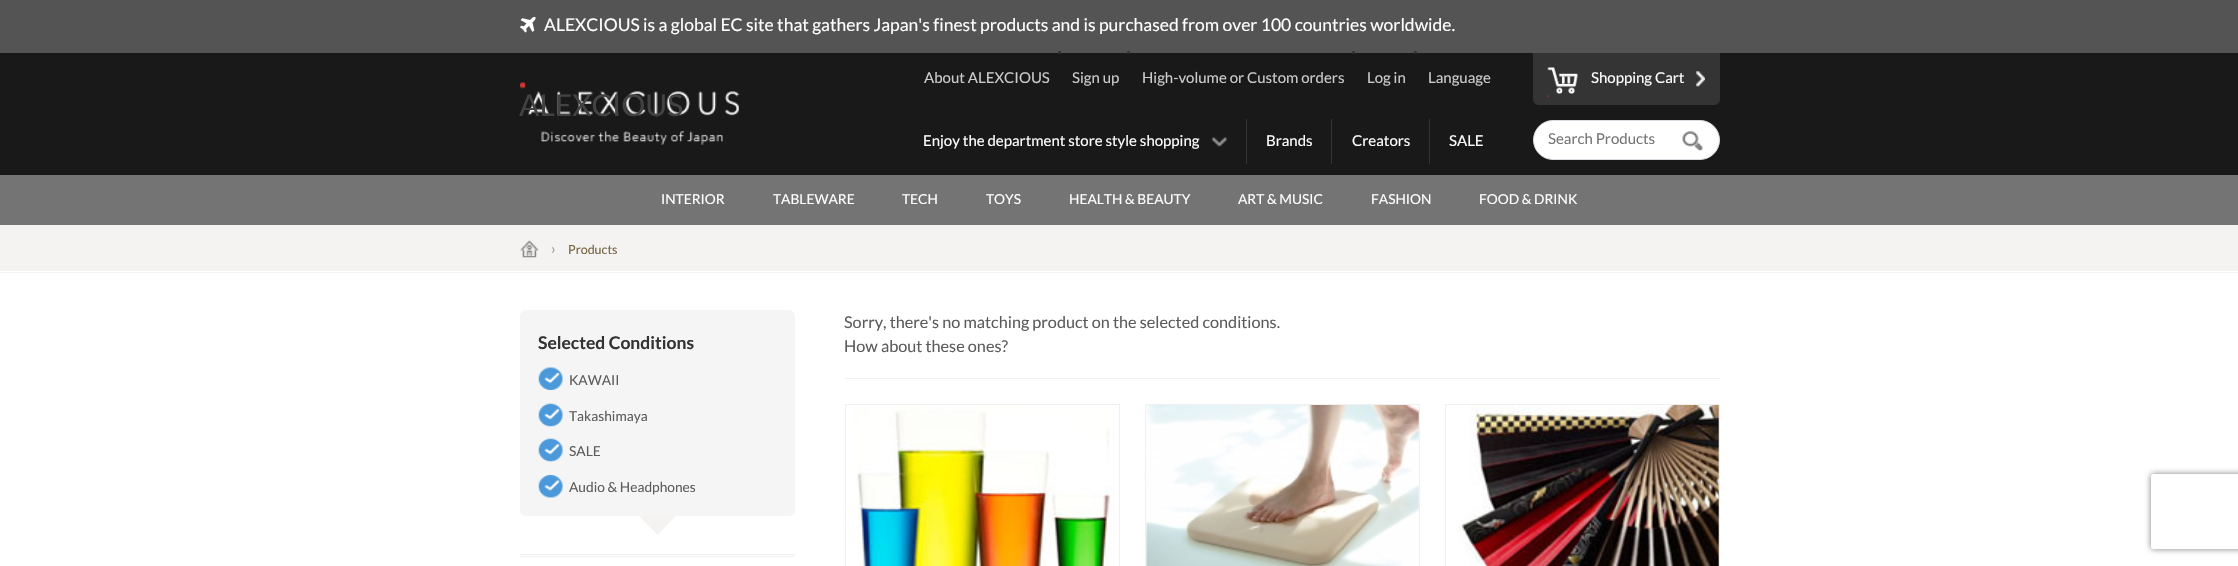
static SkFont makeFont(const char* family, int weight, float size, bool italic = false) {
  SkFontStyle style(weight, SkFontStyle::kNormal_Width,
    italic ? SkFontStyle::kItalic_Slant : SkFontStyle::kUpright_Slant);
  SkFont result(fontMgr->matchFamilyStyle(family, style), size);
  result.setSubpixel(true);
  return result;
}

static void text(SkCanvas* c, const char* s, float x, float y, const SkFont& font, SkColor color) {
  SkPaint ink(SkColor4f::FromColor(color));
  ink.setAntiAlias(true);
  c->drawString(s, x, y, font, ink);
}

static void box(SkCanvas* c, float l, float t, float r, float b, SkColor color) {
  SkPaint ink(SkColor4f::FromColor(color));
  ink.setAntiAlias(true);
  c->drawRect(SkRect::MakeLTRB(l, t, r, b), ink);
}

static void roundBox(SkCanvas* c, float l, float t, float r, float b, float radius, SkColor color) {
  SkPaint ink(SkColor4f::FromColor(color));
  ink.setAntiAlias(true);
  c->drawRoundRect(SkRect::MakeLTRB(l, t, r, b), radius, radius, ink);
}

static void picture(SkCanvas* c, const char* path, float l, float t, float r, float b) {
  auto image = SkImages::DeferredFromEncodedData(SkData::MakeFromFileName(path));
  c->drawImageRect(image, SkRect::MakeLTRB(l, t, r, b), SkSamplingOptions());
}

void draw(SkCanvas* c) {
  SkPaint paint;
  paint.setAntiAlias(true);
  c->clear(0xffffffff);
  box(c, 0, 0, 2238, 53, 0xff545454);
  picture(c, "img_01.png", 520, 16, 536, 33);
  SkFont face1 = makeFont("Lato", 400, 17.5f);
  text(c, "ALEXCIOUS is a global EC site that gathers Japan's finest products and is purchased from over 100 countries worldwide.", 544, 31, face1, 0xffffffff);
  box(c, 0, 53, 2238, 175, 0xff191919);
  picture(c, "img_02.png", 520, 82, 739, 145);
  SkFont face2 = makeFont("Lato", 400, 30);
  text(c, "ALEXCIOUS", 519, 116, face2, 0xff424242);
  SkFont face3 = makeFont("Lato", 400, 15);
  text(c, "About ALEXCIOUS", 924, 83, face3, 0xffcccccc);
  SkFont face4 = makeFont("DejaVu Sans", 400, 22);
  text(c, "⋅", 1056, 60, face4, 0xff333333);
  text(c, "Sign up", 1072, 83, face3, 0xffcccccc);
  text(c, "⋅", 1125, 60, face4, 0xff333333);
  text(c, "High-volume or Custom orders", 1142, 83, face3, 0xffcccccc);
  text(c, "⋅", 1350, 60, face4, 0xff333333);
  text(c, "Log in", 1367, 83, face3, 0xffcccccc);
  text(c, "⋅", 1412, 60, face4, 0xff333333);
  text(c, "Language", 1428, 83, face3, 0xffcccccc);
  text(c, "Enjoy the department store style shopping", 923, 146, face3, 0xffffffff);
  picture(c, "img_03.png", 1211, 137, 1228, 147);
  box(c, 1246, 119, 1247, 164, 0xff353434);
  text(c, "Brands", 1266, 146, face3, 0xffffffff);
  box(c, 1331, 119, 1332, 164, 0xff353434);
  text(c, "Creators", 1352, 146, face3, 0xffffffff);
  box(c, 1429, 119, 1430, 164, 0xff353434);
  text(c, "SALE", 1449, 146, face3, 0xffffffff);
  paint.setColor(0xff343434);
  c->drawPath(SkPathBuilder().moveTo(1533, 53).lineTo(1720, 53).lineTo(1720, 99).cubicTo(1720, 102.5f, 1717.5f, 105, 1714, 105).lineTo(1539, 105).cubicTo(1535.5f, 105, 1533, 102.5f, 1533, 99).close().detach(), paint);
  picture(c, "img_04.png", 1547, 67, 1578, 98);
  text(c, "Shopping Cart", 1591, 83, face3, 0xffffffff);
  picture(c, "img_05.png", 1696, 71, 1705, 87);
  paint.setColor(0xffffffff);
  c->drawRoundRect(SkRect::MakeLTRB(1533.5f, 120.5f, 1719.5f, 159.5f), 19.5f, 19.5f, paint);
  paint.setStyle(SkPaint::kStroke_Style);
  paint.setStrokeWidth(1);
  paint.setColor(0xffdcdbe1);
  c->drawRoundRect(SkRect::MakeLTRB(1533.5f, 120.5f, 1719.5f, 159.5f), 19.5f, 19.5f, paint);
  text(c, "Search Products", 1548, 144, face3, 0xff757575);
  picture(c, "img_06.png", 1682, 131, 1703, 151);
  box(c, 0, 175, 2238, 225, 0xff747474);
  SkFont face5 = makeFont("Lato", 400, 13.75f);
  text(c, "INTERIOR", 661, 204, face5, 0xffffffff);
  text(c, "TABLEWARE", 773, 204, face5, 0xffffffff);
  text(c, "TECH", 902, 204, face5, 0xffffffff);
  text(c, "TOYS", 986, 204, face5, 0xffffffff);
  text(c, "HEALTH & BEAUTY", 1069, 204, face5, 0xffffffff);
  text(c, "ART & MUSIC", 1238, 204, face5, 0xffffffff);
  text(c, "FASHION", 1371, 204, face5, 0xffffffff);
  text(c, "FOOD & DRINK", 1479, 204, face5, 0xffffffff);
  box(c, 0, 225, 2238, 273, 0xfff4f3f1);
  box(c, 0, 271, 2238, 272, 0xffffffff);
  picture(c, "img_07.png", 520, 240, 539, 258);
  text(c, "›", 551, 254, face3, 0xff999999);
  SkFont face6 = makeFont("Lato", 400, 12.5f);
  text(c, "Products", 568, 254, face6, 0xff756241);
  roundBox(c, 520, 310, 795, 516, 6, 0xfff5f5f5);
  SkFont face7 = makeFont("Lato", 700, 17.5f);
  text(c, "Selected Conditions", 538, 349, face7, 0xff333333);
  picture(c, "img_08.png", 538, 367, 563, 390);
  text(c, "KAWAII", 569, 385, face5, 0xff5c5c5c);
  picture(c, "img_09.png", 538, 403, 563, 427);
  text(c, "Takashimaya", 569, 421, face5, 0xff5c5c5c);
  picture(c, "img_09.png", 538, 438, 563, 462);
  text(c, "SALE", 569, 456, face5, 0xff5c5c5c);
  picture(c, "img_10.png", 538, 475, 563, 498);
  text(c, "Audio & Headphones", 569, 492, face5, 0xff5c5c5c);
  paint.setStyle(SkPaint::kFill_Style);
  paint.setColor(0xfff4f3f1);
  c->drawPath(SkPathBuilder().moveTo(639, 516).lineTo(676, 516).lineTo(657.5f, 535).close().detach(), paint);
  paint.setColor(0xffffffff);
  c->drawPath(SkPathBuilder().moveTo(676, 516).lineTo(676, 554).lineTo(657.5f, 535).close().detach(), paint);
  c->drawPath(SkPathBuilder().moveTo(639, 554).lineTo(639, 516).lineTo(657.5f, 535).close().detach(), paint);
  box(c, 520, 554, 795, 555, 0xfff0f0f0);
  box(c, 520, 556, 795, 557, 0xfff0f0f0);
  box(c, 845, 378, 1720, 379, 0xfff0f0f0);
  SkFont face8 = makeFont("Lato", 400, 16.25f);
  text(c, "Sorry, there's no matching product on the selected conditions.", 844, 328, face8, 0xff5c5c5c);
  text(c, "How about these ones?", 844, 352, face8, 0xff5c5c5c);
  paint.setStyle(SkPaint::kStroke_Style);
  paint.setColor(0xfff0f0f0);
  c->drawRect(SkRect::MakeLTRB(845.5f, 404.5f, 1119.5f, 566.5f), paint);
  picture(c, "img_11.png", 854, 405, 1115, 566);
  c->drawRect(SkRect::MakeLTRB(1145.5f, 404.5f, 1419.5f, 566.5f), paint);
  picture(c, "img_12.png", 1146, 405, 1419, 566);
  c->drawRect(SkRect::MakeLTRB(1445.5f, 404.5f, 1719.5f, 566.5f), paint);
  picture(c, "img_13.png", 1458, 405, 1719, 566);
  c->save();
  c->clipPath(SkPathBuilder(SkPathFillType::kEvenOdd).moveTo(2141, 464).lineTo(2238, 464).lineTo(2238, 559).lineTo(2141, 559).close().moveTo(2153.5f, 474).lineTo(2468.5f, 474).cubicTo(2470, 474, 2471, 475, 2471, 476.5f).lineTo(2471, 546.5f).cubicTo(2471, 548, 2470, 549, 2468.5f, 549).lineTo(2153.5f, 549).cubicTo(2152, 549, 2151, 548, 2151, 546.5f).lineTo(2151, 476.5f).cubicTo(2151, 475, 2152, 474, 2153.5f, 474).close().detach(), true);
  paint.setStyle(SkPaint::kFill_Style);
  paint.setColor(0xff808080);
  paint.setMaskFilter(SkMaskFilter::MakeBlur(kNormal_SkBlurStyle, 3));
  c->drawRoundRect(SkRect::MakeLTRB(2151, 474, 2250, 549), 2.5f, 2.5f, paint);
  paint.setMaskFilter(nullptr);
  c->restore();
}
